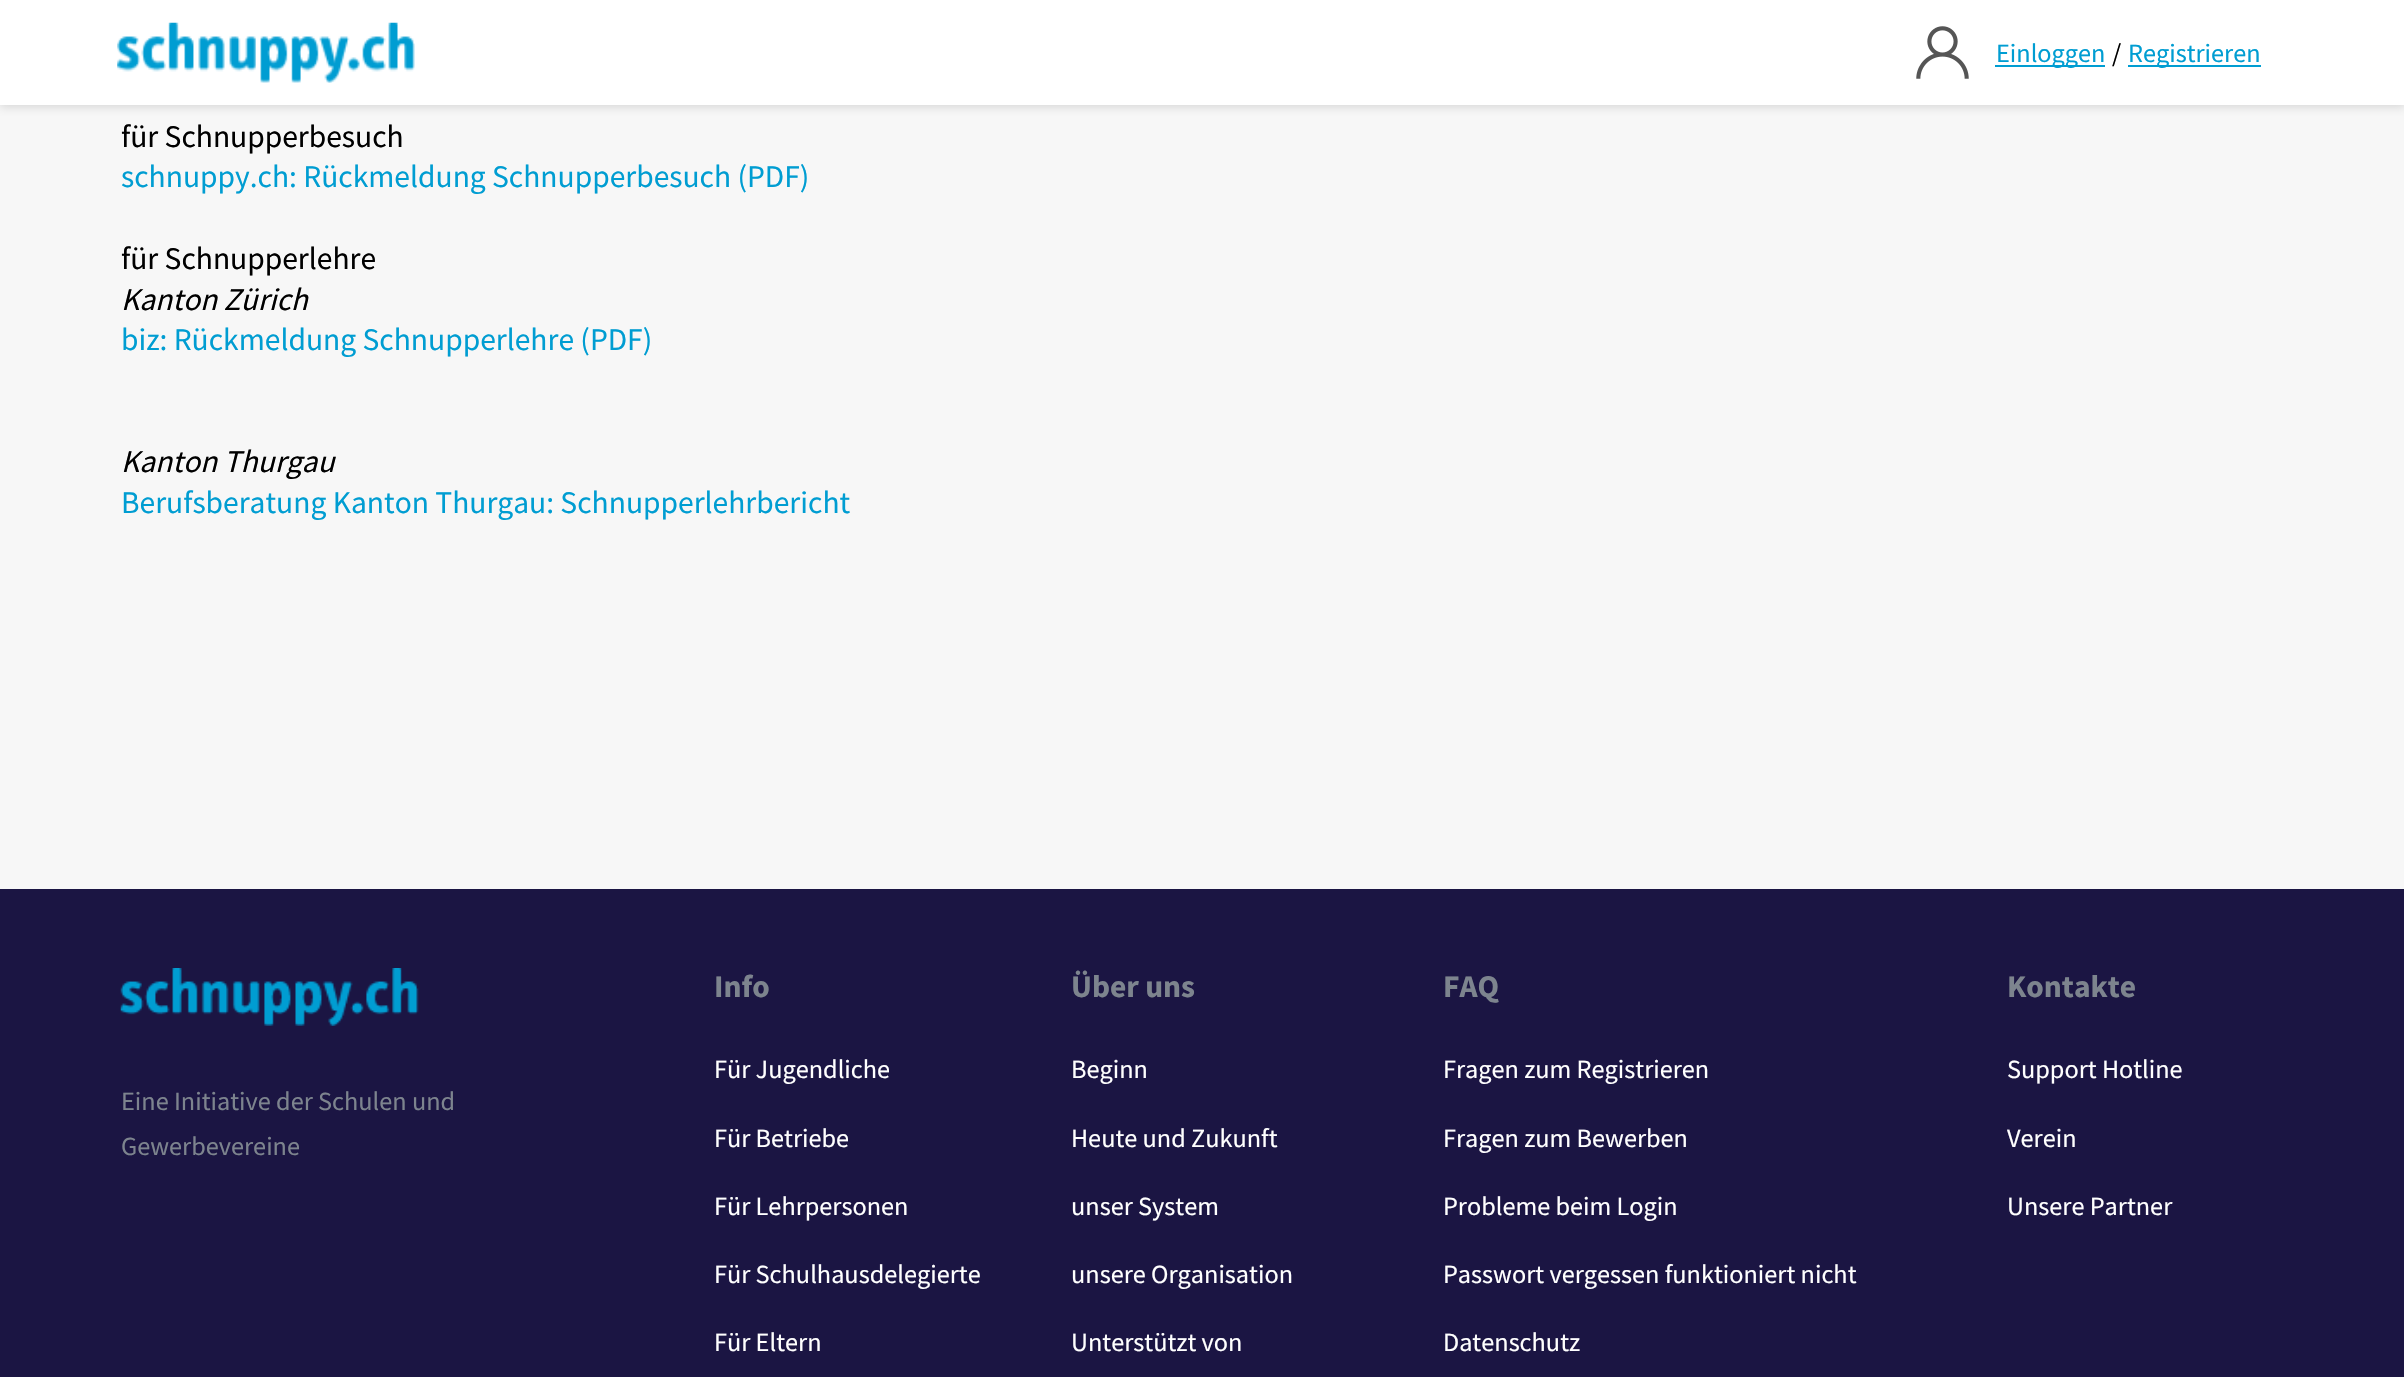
static SkFont makeFont(const char* family, int weight, float size, bool italic = false) {
  SkFontStyle style(weight, SkFontStyle::kNormal_Width,
    italic ? SkFontStyle::kItalic_Slant : SkFontStyle::kUpright_Slant);
  SkFont result(fontMgr->matchFamilyStyle(family, style), size);
  result.setSubpixel(true);
  return result;
}

static void text(SkCanvas* c, const char* s, float x, float y, const SkFont& font, SkColor color) {
  SkPaint ink(SkColor4f::FromColor(color));
  ink.setAntiAlias(true);
  c->drawString(s, x, y, font, ink);
}

static void box(SkCanvas* c, float l, float t, float r, float b, SkColor color) {
  SkPaint ink(SkColor4f::FromColor(color));
  ink.setAntiAlias(true);
  c->drawRect(SkRect::MakeLTRB(l, t, r, b), ink);
}

static void picture(SkCanvas* c, const char* path, float l, float t, float r, float b) {
  auto image = SkImages::DeferredFromEncodedData(SkData::MakeFromFileName(path));
  c->drawImageRect(image, SkRect::MakeLTRB(l, t, r, b), SkSamplingOptions());
}

void draw(SkCanvas* c) {
  SkPaint paint;
  paint.setAntiAlias(true);
  c->clear(0xff1b1543);
  box(c, 0, 0, 2404, 889, 0xfff7f7f7);
  c->save();
  c->clipRect(SkRect::MakeLTRB(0, 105, 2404, 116));
  paint.setColor(0xffd6d6d6);
  paint.setMaskFilter(SkMaskFilter::MakeBlur(kNormal_SkBlurStyle, 4.5f));
  c->drawRect(SkRect::MakeLTRB(0, 2, 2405, 107), paint);
  paint.setMaskFilter(nullptr);
  c->restore();
  box(c, 0, 0, 2404, 105, 0xe6ffffff);
  picture(c, "img_01.png", 117, 22, 415, 83);
  picture(c, "img_02.png", 1916, 26, 1969, 79);
  box(c, 1995, 65, 2105, 67, 0xff009dd2);
  SkFont face1 = makeFont("Source Sans Pro", 400, 26.25f);
  text(c, "Einloggen", 1996, 62, face1, 0xff009dd2);
  text(c, "/", 2112, 62, face1, 0xff000000);
  box(c, 2128, 65, 2261, 67, 0xff009dd2);
  text(c, "Registrieren", 2128, 62, face1, 0xff009dd2);
  SkFont face2 = makeFont("Source Sans Pro", 400, 31.5f);
  text(c, "für Schnupperbesuch", 121, 147, face2, 0xff000000);
  text(c, "schnuppy.ch: Rückmeldung Schnupperbesuch (PDF)", 121, 187, face2, 0xff009dd2);
  text(c, "für Schnupperlehre", 121, 269, face2, 0xff000000);
  SkFont face3 = makeFont("Source Sans Pro", 400, 31.5f, true);
  text(c, "Kanton Zürich", 121, 310, face3, 0xff000000);
  text(c, "biz: Rückmeldung Schnupperlehre (PDF)", 121, 350, face2, 0xff009dd2);
  text(c, "Kanton Thurgau", 121, 472, face3, 0xff000000);
  text(c, "Berufsberatung Kanton Thurgau: Schnupperlehrbericht", 121, 513, face2, 0xff009dd2);
  picture(c, "img_03.png", 120, 968, 419, 1026);
  text(c, "Eine Initiative der Schulen und", 121, 1110, face1, 0xff7d848e);
  text(c, "Gewerbevereine", 121, 1155, face1, 0xff7d848e);
  SkFont face4 = makeFont("Source Sans Pro", 700, 31.5f);
  text(c, "Info", 714, 997, face4, 0xff7d848e);
  text(c, "Für Jugendliche", 714, 1078, face1, 0xffffffff);
  text(c, "Für Betriebe", 714, 1147, face1, 0xffffffff);
  text(c, "Für Lehrpersonen", 714, 1215, face1, 0xffffffff);
  text(c, "Für Schulhausdelegierte", 714, 1283, face1, 0xffffffff);
  text(c, "Für Eltern", 714, 1351, face1, 0xffffffff);
  text(c, "Über uns", 1071, 997, face4, 0xff7d848e);
  text(c, "Beginn", 1071, 1078, face1, 0xffffffff);
  text(c, "Heute und Zukunft", 1071, 1147, face1, 0xffffffff);
  text(c, "unser System", 1071, 1215, face1, 0xffffffff);
  text(c, "unsere Organisation", 1071, 1283, face1, 0xffffffff);
  text(c, "Unterstützt von", 1071, 1351, face1, 0xffffffff);
  text(c, "FAQ", 1443, 997, face4, 0xff7d848e);
  text(c, "Fragen zum Registrieren", 1443, 1078, face1, 0xffffffff);
  text(c, "Fragen zum Bewerben", 1443, 1147, face1, 0xffffffff);
  text(c, "Probleme beim Login", 1443, 1215, face1, 0xffffffff);
  text(c, "Passwort vergessen funktioniert nicht", 1443, 1283, face1, 0xffffffff);
  text(c, "Datenschutz", 1443, 1351, face1, 0xffffffff);
  text(c, "Kontakte", 2007, 997, face4, 0xff7d848e);
  text(c, "Support Hotline", 2007, 1078, face1, 0xffffffff);
  text(c, "Verein", 2007, 1147, face1, 0xffffffff);
  text(c, "Unsere Partner", 2007, 1215, face1, 0xffffffff);
}
